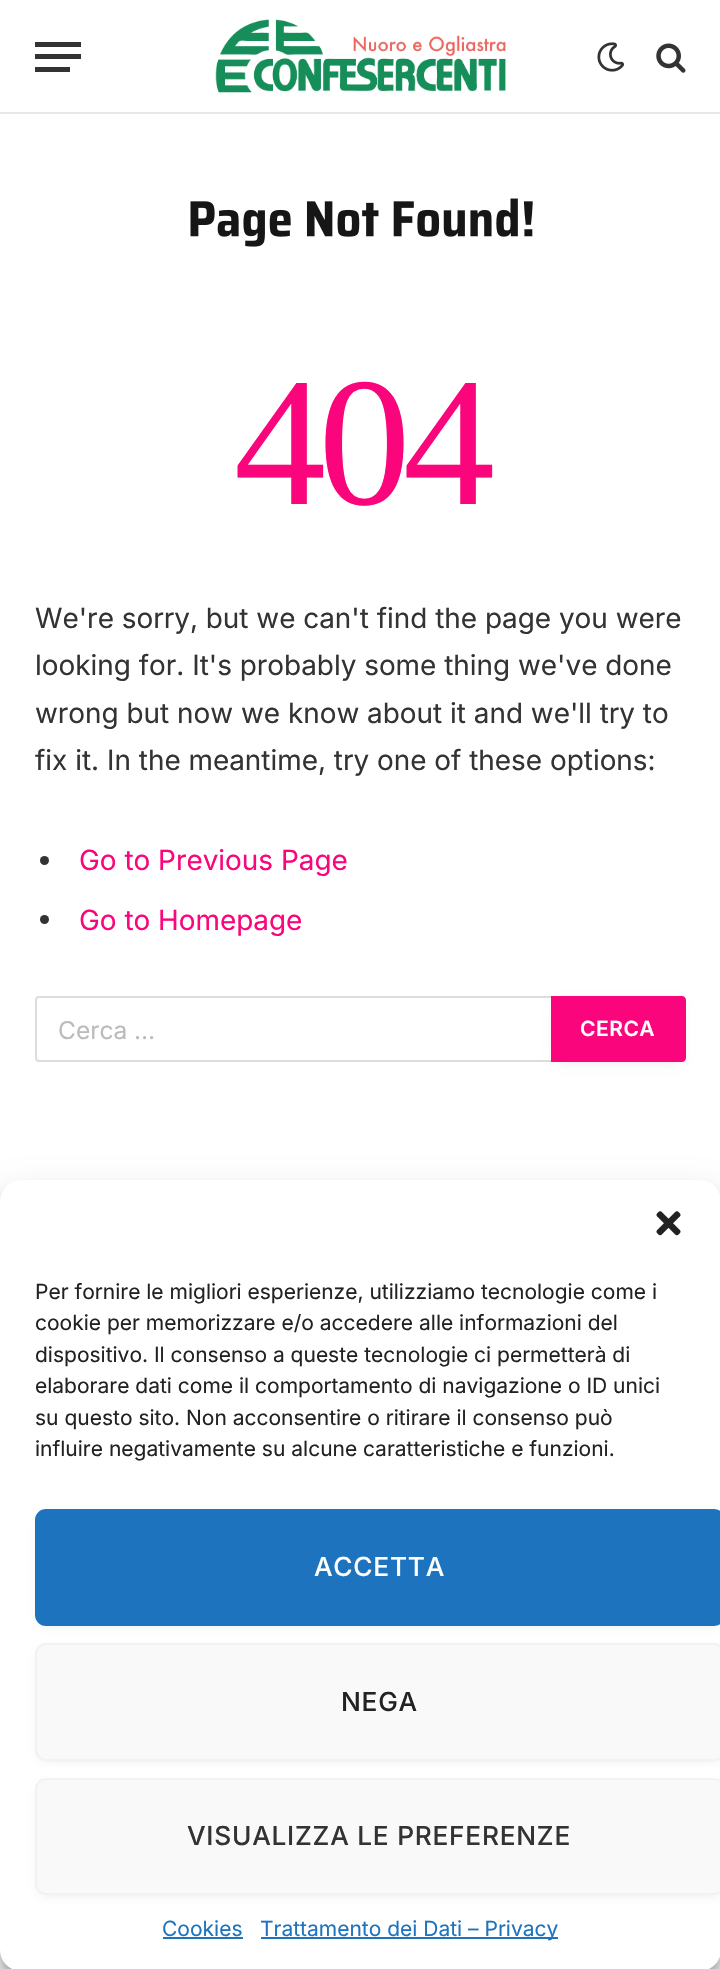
static SkFont makeFont(const char* family, int weight, float size, bool italic = false) {
  SkFontStyle style(weight, SkFontStyle::kNormal_Width,
    italic ? SkFontStyle::kItalic_Slant : SkFontStyle::kUpright_Slant);
  SkFont result(fontMgr->matchFamilyStyle(family, style), size);
  result.setSubpixel(true);
  return result;
}

static void text(SkCanvas* c, const char* s, float x, float y, const SkFont& font, SkColor color) {
  SkPaint ink(SkColor4f::FromColor(color));
  ink.setAntiAlias(true);
  c->drawString(s, x, y, font, ink);
}

static void spacedText(SkCanvas* c, const char* s, float x, float y, const SkFont& font, const SkPaint& ink, float letter, float word) {
  std::vector<SkGlyphID> glyphs(font.countText(s, strlen(s), SkTextEncoding::kUTF8));
  std::vector<float> xs(glyphs.size());
  font.textToGlyphs(s, strlen(s), SkTextEncoding::kUTF8, glyphs);
  font.getXPos(glyphs, xs, x);
  float extra = 0;
  for (size_t i = 0; i < glyphs.size(); i++) {
    xs[i] += extra;
    extra += letter + word * (glyphs[i] == font.unicharToGlyph(' '));
  }
  c->drawTextBlob(SkTextBlob::MakeFromPosHGlyphs(glyphs, xs, y, font), 0, 0, ink);
}

static void box(SkCanvas* c, float l, float t, float r, float b, SkColor color) {
  SkPaint ink(SkColor4f::FromColor(color));
  ink.setAntiAlias(true);
  c->drawRect(SkRect::MakeLTRB(l, t, r, b), ink);
}

static void roundBox(SkCanvas* c, float l, float t, float r, float b, float radius, SkColor color) {
  SkPaint ink(SkColor4f::FromColor(color));
  ink.setAntiAlias(true);
  c->drawRoundRect(SkRect::MakeLTRB(l, t, r, b), radius, radius, ink);
}

static void picture(SkCanvas* c, const char* path, float l, float t, float r, float b) {
  auto image = SkImages::DeferredFromEncodedData(SkData::MakeFromFileName(path));
  c->drawImageRect(image, SkRect::MakeLTRB(l, t, r, b), SkSamplingOptions());
}

void draw(SkCanvas* c) {
  SkPaint paint;
  paint.setAntiAlias(true);
  c->clear(0xffffffff);
  box(c, 0, 112, 720, 114, 0xffe8e8e8);
  box(c, 35, 67, 70, 72, 0xff333333);
  box(c, 35, 42, 81, 47, 0xff333333);
  box(c, 35, 54, 81, 59, 0xff333333);
  picture(c, "img_01.png", 215, 19, 506, 93);
  picture(c, "img_02.png", 597, 42, 624, 72);
  picture(c, "img_03.png", 656, 43, 686, 73);
  picture(c, "img_04.png", 190, 198, 533, 247);
  SkFont face1 = makeFont("Liberation Serif", 400, 184);
  paint.setColor(0xfffa057b);
  spacedText(c, "404", 234, 504, face1, paint, -7.5f, 0);
  SkFont face2 = makeFont("Inter", 400, 27.9f);
  text(c, "We're sorry, but we can't find the page you were", 35, 628, face2, 0xff333333);
  text(c, "looking for. It's probably some thing we've done", 35, 675, face2, 0xff333333);
  text(c, "wrong but now we know about it and we'll try to", 35, 723, face2, 0xff333333);
  text(c, "fix it. In the meantime, try one of these options:", 35, 770, face2, 0xff333333);
  paint.setColor(0xff333333);
  c->drawCircle(44.5f, 860.5f, 4.5f, paint);
  text(c, "Go to Previous Page", 79, 870, face2, 0xfffa057b);
  c->drawCircle(44.5f, 919.5f, 4.5f, paint);
  text(c, "Go to Homepage", 79, 930, face2, 0xfffa057b);
  paint.setStyle(SkPaint::kStroke_Style);
  paint.setStrokeWidth(2);
  paint.setColor(0xffdddddd);
  c->drawRoundRect(SkRect::MakeLTRB(36, 997, 554, 1061), 3, 3, paint);
  SkFont face3 = makeFont("Inter", 400, 24.5f);
  text(c, "Cerca …", 58, 1039, face3, 0xffbbbbbb);
  paint.setStyle(SkPaint::kFill_Style);
  paint.setColor(0x29000000);
  paint.setMaskFilter(SkMaskFilter::MakeBlur(kNormal_SkBlurStyle, 6));
  c->drawRect(SkRect::MakeLTRB(558, 1006, 679, 1059), paint);
  paint.setMaskFilter(nullptr);
  paint.setColor(0xfffa057b);
  c->drawPath(SkPathBuilder().moveTo(551, 996).lineTo(682, 996).cubicTo(684, 996, 686, 998, 686, 1000).lineTo(686, 1058).cubicTo(686, 1060, 684, 1062, 682, 1062).lineTo(551, 1062).close().detach(), paint);
  SkFont face4 = makeFont("Inter", 600, 21);
  paint.setColor(0xffffffff);
  spacedText(c, "CERCA", 580, 1036, face4, paint, 0.5f, 0);
  paint.setColor(0x3b000000);
  paint.setMaskFilter(SkMaskFilter::MakeBlur(kNormal_SkBlurStyle, 5));
  c->drawRoundRect(SkRect::MakeLTRB(0, 1190, 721, 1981), 21, 21, paint);
  paint.setMaskFilter(nullptr);
  paint.setColor(0x30000000);
  paint.setMaskFilter(SkMaskFilter::MakeBlur(kNormal_SkBlurStyle, 17.5f));
  c->drawRoundRect(SkRect::MakeLTRB(0, 1197, 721, 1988), 21, 21, paint);
  paint.setMaskFilter(nullptr);
  roundBox(c, 0, 1180, 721, 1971, 21, 0xffffffff);
  picture(c, "img_05.png", 656, 1211, 681, 1236);
  SkFont face5 = makeFont("Inter", 400, 21);
  text(c, "Per fornire le migliori esperienze, utilizziamo tecnologie come i", 35, 1299, face5, 0xff222222);
  text(c, "cookie per memorizzare e/o accedere alle informazioni del", 35, 1330, face5, 0xff222222);
  text(c, "dispositivo. Il consenso a queste tecnologie ci permetterà di", 35, 1362, face5, 0xff222222);
  text(c, "elaborare dati come il comportamento di navigazione o ID unici", 35, 1393, face5, 0xff222222);
  text(c, "su questo sito. Non acconsentire o ritirare il consenso può", 35, 1425, face5, 0xff222222);
  text(c, "influire negativamente su alcune caratteristiche e funzioni.", 35, 1456, face5, 0xff222222);
  paint.setColor(0x29000000);
  paint.setMaskFilter(SkMaskFilter::MakeBlur(kNormal_SkBlurStyle, 6));
  c->drawRoundRect(SkRect::MakeLTRB(42, 1519, 718, 1622), 4, 4, paint);
  paint.setMaskFilter(nullptr);
  paint.setColor(0xff1e73be);
  c->drawRoundRect(SkRect::MakeLTRB(36, 1510, 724, 1625), 10, 10, paint);
  paint.setStyle(SkPaint::kStroke_Style);
  c->drawRoundRect(SkRect::MakeLTRB(36, 1510, 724, 1625), 10, 10, paint);
  SkFont face6 = makeFont("Inter", 500, 26.25f);
  paint.setStyle(SkPaint::kFill_Style);
  paint.setColor(0xffffffff);
  spacedText(c, "ACCETTA", 314, 1576, face6, paint, 0.75f, 0);
  paint.setColor(0x29000000);
  paint.setMaskFilter(SkMaskFilter::MakeBlur(kNormal_SkBlurStyle, 6));
  c->drawRoundRect(SkRect::MakeLTRB(42, 1654, 718, 1757), 4, 4, paint);
  paint.setMaskFilter(nullptr);
  paint.setColor(0xfff9f9f9);
  c->drawRoundRect(SkRect::MakeLTRB(36, 1644, 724, 1760), 10, 10, paint);
  paint.setStyle(SkPaint::kStroke_Style);
  paint.setColor(0xfff2f2f2);
  c->drawRoundRect(SkRect::MakeLTRB(36, 1644, 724, 1760), 10, 10, paint);
  paint.setStyle(SkPaint::kFill_Style);
  paint.setColor(0xff222222);
  spacedText(c, "NEGA", 341, 1711, face6, paint, 0.75f, 0);
  paint.setColor(0x29000000);
  paint.setMaskFilter(SkMaskFilter::MakeBlur(kNormal_SkBlurStyle, 6));
  c->drawRoundRect(SkRect::MakeLTRB(42, 1789, 718, 1892), 4, 4, paint);
  paint.setMaskFilter(nullptr);
  paint.setColor(0xfff9f9f9);
  c->drawRoundRect(SkRect::MakeLTRB(36, 1779, 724, 1894), 10, 10, paint);
  paint.setStyle(SkPaint::kStroke_Style);
  paint.setColor(0xfff2f2f2);
  c->drawRoundRect(SkRect::MakeLTRB(36, 1779, 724, 1894), 10, 10, paint);
  paint.setStyle(SkPaint::kFill_Style);
  paint.setColor(0xff333333);
  spacedText(c, "VISUALIZZA LE PREFERENZE", 187, 1845, face6, paint, 0.75f, 0);
  text(c, "Cookies", 162, 1936, face5, 0xff1e73be);
  box(c, 163, 1937, 243, 1939, 0xff1e73be);
  box(c, 261, 1937, 558, 1939, 0xff1e73be);
  text(c, "Trattamento dei Dati – Privacy", 260, 1936, face5, 0xff1e73be);
}
